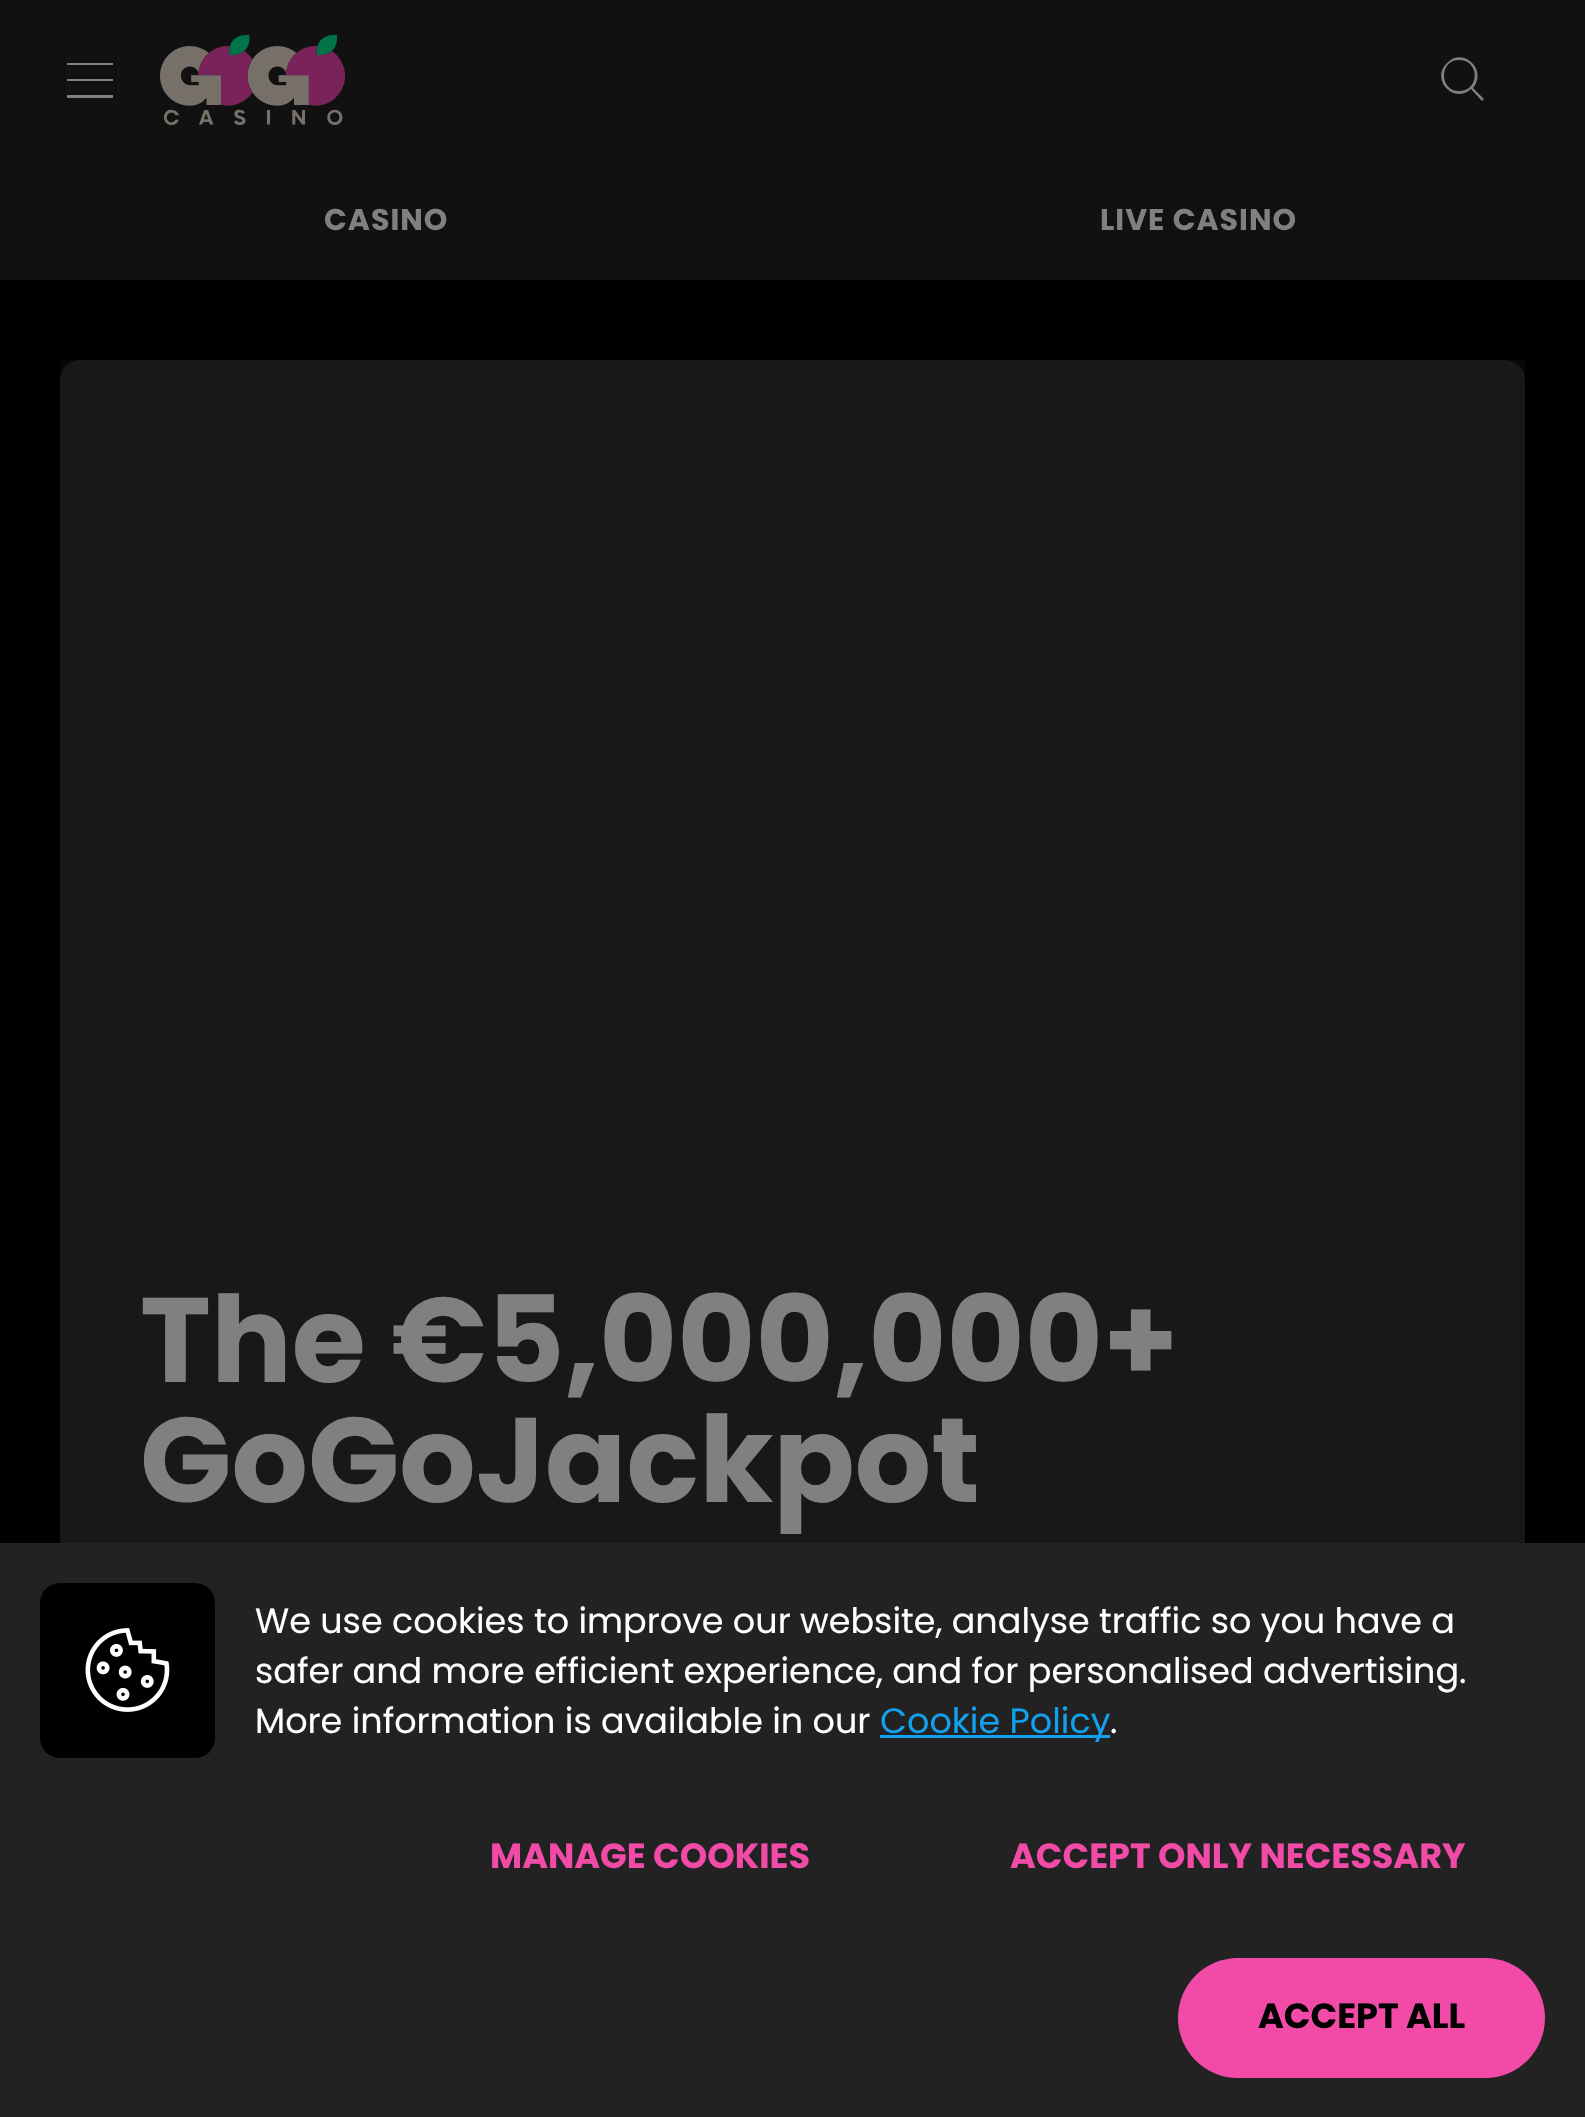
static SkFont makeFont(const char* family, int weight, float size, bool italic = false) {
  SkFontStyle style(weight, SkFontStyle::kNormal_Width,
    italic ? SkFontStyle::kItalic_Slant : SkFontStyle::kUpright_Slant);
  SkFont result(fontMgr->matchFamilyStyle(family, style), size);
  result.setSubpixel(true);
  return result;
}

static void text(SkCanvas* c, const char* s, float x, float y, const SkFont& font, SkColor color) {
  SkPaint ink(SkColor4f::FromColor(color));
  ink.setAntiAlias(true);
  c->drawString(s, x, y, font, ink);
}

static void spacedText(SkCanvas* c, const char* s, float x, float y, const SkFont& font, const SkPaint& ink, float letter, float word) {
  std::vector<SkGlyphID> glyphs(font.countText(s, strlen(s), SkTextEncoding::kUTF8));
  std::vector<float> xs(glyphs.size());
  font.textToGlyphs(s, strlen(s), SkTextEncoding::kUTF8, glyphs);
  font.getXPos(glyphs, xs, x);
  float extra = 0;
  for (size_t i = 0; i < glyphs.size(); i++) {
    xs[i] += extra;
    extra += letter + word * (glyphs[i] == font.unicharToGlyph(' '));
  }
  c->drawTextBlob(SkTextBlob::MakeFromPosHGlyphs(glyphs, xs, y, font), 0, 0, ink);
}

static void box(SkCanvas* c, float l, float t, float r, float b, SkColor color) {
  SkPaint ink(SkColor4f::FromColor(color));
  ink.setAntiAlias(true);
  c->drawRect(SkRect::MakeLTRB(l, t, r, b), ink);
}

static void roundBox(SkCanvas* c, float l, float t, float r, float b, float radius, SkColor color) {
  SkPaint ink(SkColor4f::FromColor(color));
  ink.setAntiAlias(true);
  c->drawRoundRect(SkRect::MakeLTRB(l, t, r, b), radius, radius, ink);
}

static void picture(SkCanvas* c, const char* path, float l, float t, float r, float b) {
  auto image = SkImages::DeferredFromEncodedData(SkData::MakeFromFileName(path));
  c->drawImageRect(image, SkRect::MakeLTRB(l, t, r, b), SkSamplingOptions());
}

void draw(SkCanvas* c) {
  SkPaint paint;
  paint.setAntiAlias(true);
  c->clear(0xff000000);
  box(c, 0, 0, 1585, 280, 0xff111111);
  paint.setColor(0xff808080);
  c->drawPath(SkPathBuilder(SkPathFillType::kEvenOdd).moveTo(67, 63).lineTo(67, 65).lineTo(113, 65).lineTo(113, 63).close().moveTo(67, 79).lineTo(67, 81).lineTo(113, 81).lineTo(113, 79).close().moveTo(67, 98).lineTo(67, 95).lineTo(113, 95).lineTo(113, 98).close().detach(), paint);
  picture(c, "img_01.png", 160, 35, 345, 125);
  c->drawPath(SkPathBuilder(SkPathFillType::kEvenOdd).moveTo(1473, 88).cubicTo(1488, 70, 1463, 46, 1447, 63).cubicTo(1430, 79, 1454, 105, 1471, 89).lineTo(1482, 101).lineTo(1484, 99).close().moveTo(1459, 91).cubicTo(1439, 91, 1439, 60, 1459, 60).cubicTo(1480, 60, 1480, 91, 1459, 91).close().detach(), paint);
  SkFont face1 = makeFont("Poppins", 700, 30);
  spacedText(c, "CASINO", 324, 230, face1, paint, 1, 0);
  spacedText(c, "LIVE CASINO", 1100, 230, face1, paint, 1, 0);
  roundBox(c, 60, 360, 1525, 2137, 20, 0xff111111);
  box(c, 60, 360, 1525, 1543, 0x0d808080);
  SkFont face2 = makeFont("Poppins", 700, 120);
  text(c, "The €5,000,000+", 140, 1382, face2, 0xff808080);
  text(c, "GoGoJackpot", 140, 1502, face2, 0xff808080);
  box(c, 0, 1543, 1585, 2117, 0xff222222);
  roundBox(c, 40, 1583, 215, 1758, 20, 0xff000000);
  picture(c, "img_02.png", 85, 1628, 170, 1712);
  SkFont face3 = makeFont("Poppins", 400, 35);
  text(c, "We use cookies to improve our website, analyse traffic so you have a", 255, 1633, face3, 0xffffffff);
  text(c, "safer and more efficient experience, and for personalised advertising.", 255, 1683, face3, 0xffffffff);
  text(c, "More information is available in our", 255, 1733, face3, 0xffffffff);
  box(c, 880, 1735, 1110, 1738, 0xff11a1ee);
  text(c, "Cookie Policy", 880, 1733, face3, 0xff11a1ee);
  text(c, ".", 1110, 1733, face3, 0xffffffff);
  SkFont face4 = makeFont("Poppins", 700, 35);
  text(c, "MANAGE COOKIES", 490, 1868, face4, 0xfff14aa7);
  text(c, "ACCEPT ONLY NECESSARY", 1010, 1868, face4, 0xfff14aa7);
  roundBox(c, 1178, 1958, 1545, 2078, 60, 0xfff14aa7);
  text(c, "ACCEPT ALL", 1258, 2028, face4, 0xff000000);
}
